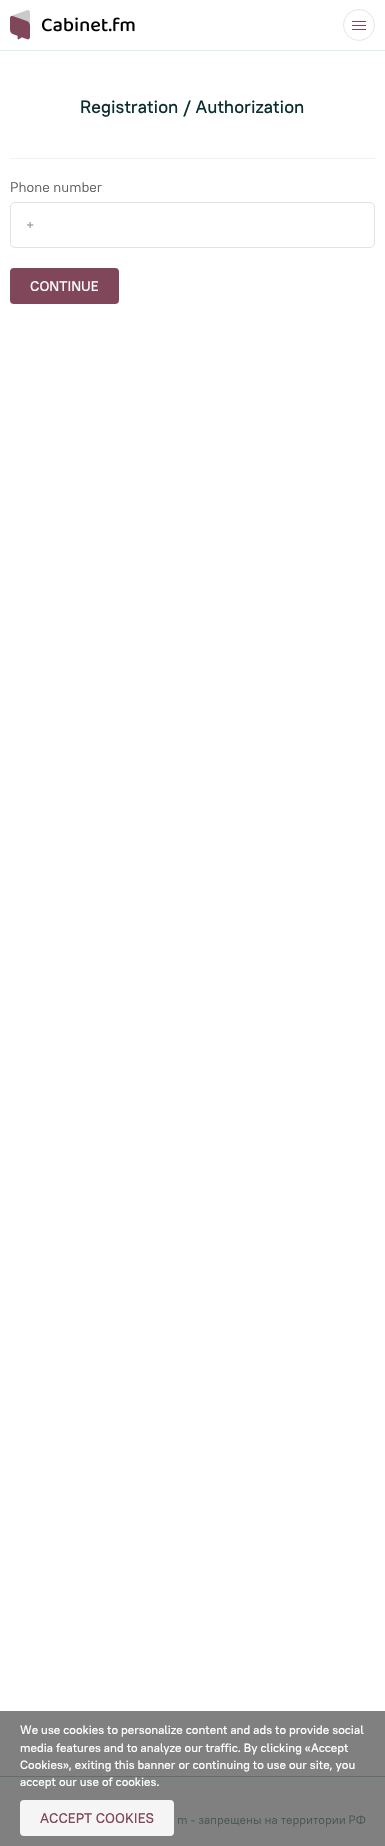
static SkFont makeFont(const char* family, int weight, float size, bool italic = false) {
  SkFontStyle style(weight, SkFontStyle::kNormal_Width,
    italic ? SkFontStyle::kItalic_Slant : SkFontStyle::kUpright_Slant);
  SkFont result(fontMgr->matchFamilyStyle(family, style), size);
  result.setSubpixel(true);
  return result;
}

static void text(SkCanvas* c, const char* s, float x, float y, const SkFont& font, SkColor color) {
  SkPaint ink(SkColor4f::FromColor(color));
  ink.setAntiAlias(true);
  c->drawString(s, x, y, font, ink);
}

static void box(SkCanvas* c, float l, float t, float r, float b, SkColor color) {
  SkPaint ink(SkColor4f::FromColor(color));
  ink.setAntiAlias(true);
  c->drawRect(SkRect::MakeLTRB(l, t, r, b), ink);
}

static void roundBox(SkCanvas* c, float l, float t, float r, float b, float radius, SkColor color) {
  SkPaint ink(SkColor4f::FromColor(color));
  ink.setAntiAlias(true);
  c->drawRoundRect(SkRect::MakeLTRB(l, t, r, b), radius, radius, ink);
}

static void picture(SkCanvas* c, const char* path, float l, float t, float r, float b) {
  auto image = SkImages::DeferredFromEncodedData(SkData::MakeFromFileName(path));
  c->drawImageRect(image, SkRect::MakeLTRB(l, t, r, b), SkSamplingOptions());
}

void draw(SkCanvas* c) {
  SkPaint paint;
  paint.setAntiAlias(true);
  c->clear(0xffffffff);
  box(c, 0, 1711, 385, 1846, 0xff808080);
  box(c, 0, 50, 385, 51, 0xffe1eeee);
  picture(c, "img_01.png", 10, 10, 135, 40);
  paint.setStyle(SkPaint::kStroke_Style);
  paint.setStrokeWidth(1);
  paint.setColor(0xffe6e6e6);
  c->drawCircle(359, 25, 15.5f, paint);
  box(c, 352, 21, 366, 22, 0xff80475b);
  box(c, 352, 25, 366, 26, 0xff80475b);
  box(c, 352, 29, 366, 30, 0xff80475b);
  box(c, 10, 158, 375, 159, 0xfff1f1f1);
  SkFont face1 = makeFont("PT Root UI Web", 500, 18);
  text(c, "Registration / Authorization", 80, 113, face1, 0xff0b2d2d);
  SkFont face2 = makeFont("PT Root UI Web", 400, 14);
  text(c, "Phone number", 10, 192, face2, 0xff5a5a5a);
  paint.setColor(0xffe1e1ea);
  c->drawRoundRect(SkRect::MakeLTRB(10.5f, 202.5f, 374.5f, 247.5f), 4.5f, 4.5f, paint);
  text(c, "+", 26, 230, face2, 0xff96969a);
  roundBox(c, 10, 268, 119, 304, 4, 0xff80475b);
  SkFont face3 = makeFont("PT Root UI Web", 500, 14);
  text(c, "CONTINUE", 30, 291, face3, 0xffffffff);
  box(c, 0, 1776, 385, 1777, 0xff606d6d);
  SkFont face4 = makeFont("PT Root UI Web", 400, 12);
  text(c, "m - запрещены на территории РФ", 177, 1824, face4, 0xff455555);
  SkFont face5 = makeFont("PT Root UI Web", 500, 12);
  text(c, "We use cookies to personalize content and ads to provide social", 20, 1734, face5, 0xffffffff);
  text(c, "media features and to analyze our traffic. By clicking «Accept", 20, 1752, face5, 0xffffffff);
  text(c, "Cookies», exiting this banner or continuing to use our site, you", 20, 1769, face5, 0xffffffff);
  text(c, "accept our use of cookies.", 20, 1786, face5, 0xffffffff);
  roundBox(c, 20, 1800, 174, 1836, 4, 0xfff5f5f5);
  text(c, "ACCEPT COOKIES", 40, 1823, face3, 0xff80475b);
}
